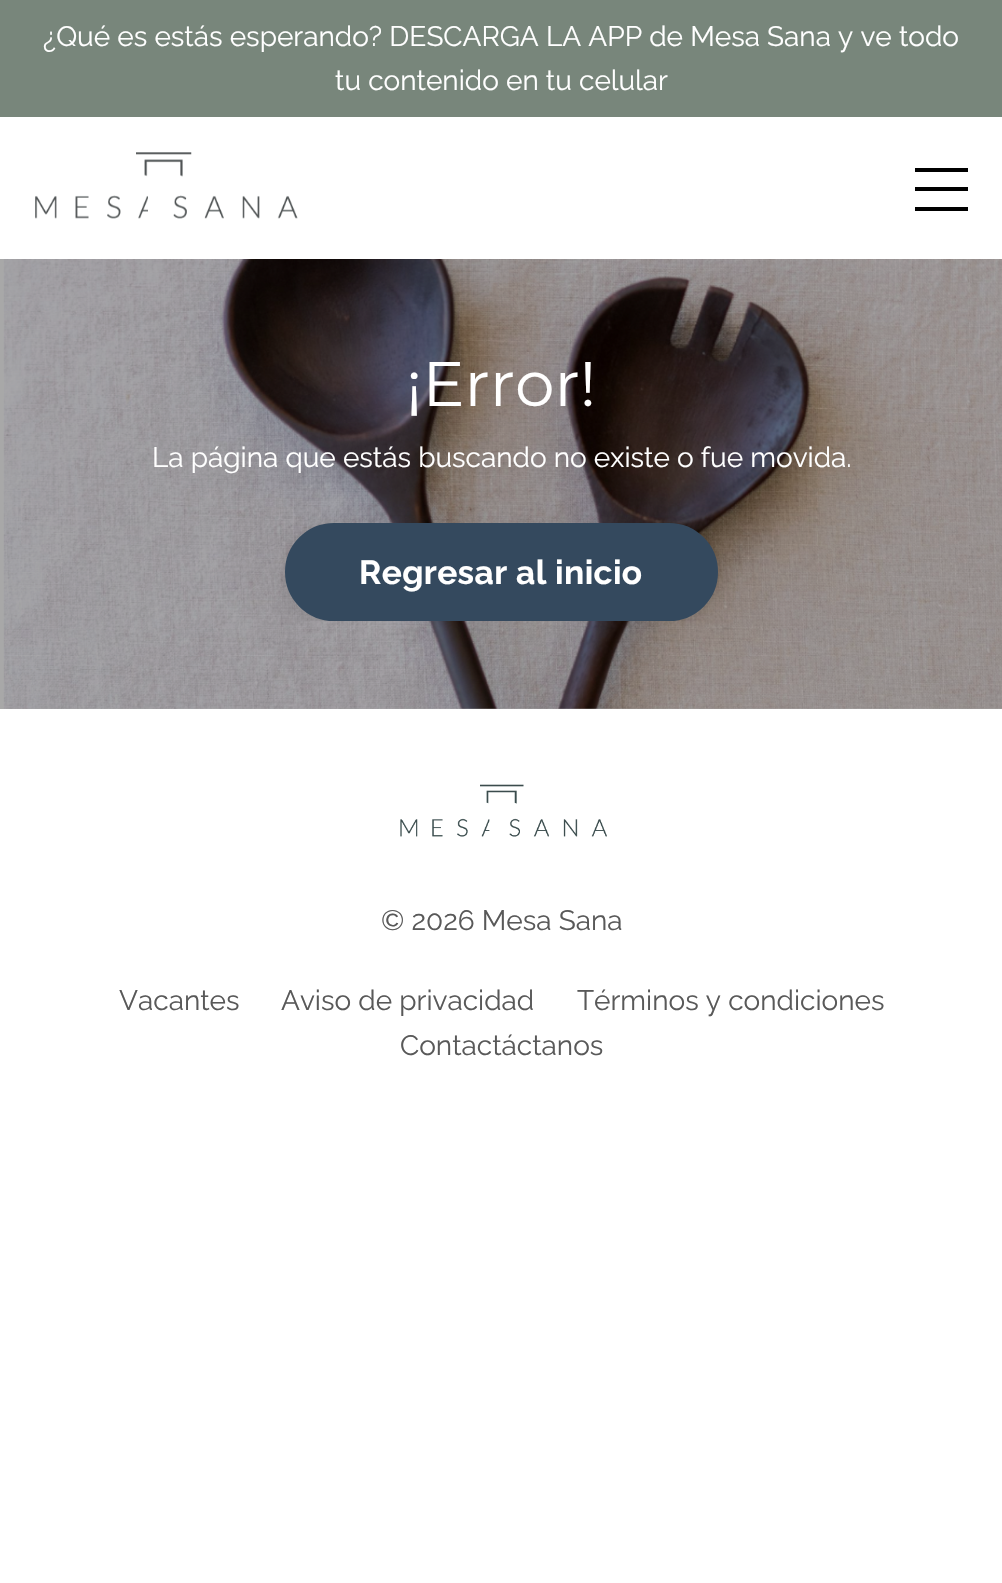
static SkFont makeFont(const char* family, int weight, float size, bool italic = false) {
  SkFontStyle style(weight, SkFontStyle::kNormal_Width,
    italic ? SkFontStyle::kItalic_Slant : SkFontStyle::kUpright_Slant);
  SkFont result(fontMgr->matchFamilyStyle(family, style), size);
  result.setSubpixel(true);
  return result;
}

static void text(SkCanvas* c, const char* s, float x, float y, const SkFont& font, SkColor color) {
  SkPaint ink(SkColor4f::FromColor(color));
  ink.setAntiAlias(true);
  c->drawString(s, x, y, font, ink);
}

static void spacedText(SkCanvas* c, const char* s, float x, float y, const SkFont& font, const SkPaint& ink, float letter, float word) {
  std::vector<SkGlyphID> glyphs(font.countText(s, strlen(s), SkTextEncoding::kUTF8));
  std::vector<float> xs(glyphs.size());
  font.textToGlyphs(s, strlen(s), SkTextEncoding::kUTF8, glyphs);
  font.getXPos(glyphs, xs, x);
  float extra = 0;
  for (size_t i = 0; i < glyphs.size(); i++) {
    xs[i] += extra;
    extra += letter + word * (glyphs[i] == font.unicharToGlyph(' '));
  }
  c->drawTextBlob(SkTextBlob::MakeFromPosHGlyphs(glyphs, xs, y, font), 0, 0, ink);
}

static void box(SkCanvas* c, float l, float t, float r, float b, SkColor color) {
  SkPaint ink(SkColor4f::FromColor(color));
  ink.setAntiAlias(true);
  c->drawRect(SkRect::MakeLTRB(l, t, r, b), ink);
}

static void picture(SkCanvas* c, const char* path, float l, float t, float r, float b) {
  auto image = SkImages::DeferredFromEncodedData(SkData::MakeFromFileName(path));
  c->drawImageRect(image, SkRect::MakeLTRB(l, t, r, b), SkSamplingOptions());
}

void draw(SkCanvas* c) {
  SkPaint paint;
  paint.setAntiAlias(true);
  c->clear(0xffffffff);
  box(c, 0, 259, 1002, 709, 0xffa8a8a8);
  box(c, 0, 0, 1002, 117, 0xff78867b);
  SkFont face1 = makeFont("Raleway", 400, 28);
  text(c, "¿Qué es estás esperando? DESCARGA LA APP de Mesa Sana y ve todo", 43, 46, face1, 0xffffffff);
  text(c, "tu contenido en tu celular", 335, 90, face1, 0xffffffff);
  picture(c, "img_01.png", 35, 152, 298, 219);
  box(c, 915, 168, 968, 172, 0xff000000);
  box(c, 915, 187, 968, 191, 0xff000000);
  box(c, 915, 207, 968, 211, 0xff000000);
  picture(c, "img_02.png", 3, 259, 1002, 709);
  SkFont face2 = makeFont("Montserrat", 400, 63);
  text(c, "¡Error!", 406, 406, face2, 0xffffffff);
  text(c, "La página que estás buscando no existe o fue movida.", 152, 467, face1, 0xffffffff);
  c->save();
  c->clipPath(SkPathBuilder().moveTo(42, 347).lineTo(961, 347).cubicTo(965, 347, 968, 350, 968, 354).lineTo(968, 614).cubicTo(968, 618, 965, 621, 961, 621).lineTo(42, 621).cubicTo(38, 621, 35, 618, 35, 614).lineTo(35, 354).cubicTo(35, 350, 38, 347, 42, 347).close().detach(), true);
  paint.setColor(0x1a000000);
  paint.setMaskFilter(SkMaskFilter::MakeBlur(kNormal_SkBlurStyle, 9));
  c->drawRoundRect(SkRect::MakeLTRB(285, 527, 718, 625), 49, 49, paint);
  paint.setMaskFilter(nullptr);
  c->restore();
  paint.setColor(0xff34495e);
  c->drawRoundRect(SkRect::MakeLTRB(287, 525, 716, 619), 47, 47, paint);
  paint.setStyle(SkPaint::kStroke_Style);
  paint.setStrokeWidth(4);
  c->drawRoundRect(SkRect::MakeLTRB(287, 525, 716, 619), 47, 47, paint);
  SkFont face3 = makeFont("Raleway", 700, 33.5f);
  paint.setStyle(SkPaint::kFill_Style);
  paint.setColor(0xffffffff);
  spacedText(c, "Regresar al inicio", 359, 584, face3, paint, 0.4f, 0);
  picture(c, "img_03.png", 400, 784, 607, 837);
  text(c, "© 2026 Mesa Sana", 381, 930, face1, 0xff595959);
  text(c, "Vacantes", 119, 1010, face1, 0xff595959);
  text(c, "Aviso de privacidad", 281, 1010, face1, 0xff595959);
  text(c, "Términos y condiciones", 577, 1010, face1, 0xff595959);
  text(c, "Contactáctanos", 400, 1055, face1, 0xff595959);
}
